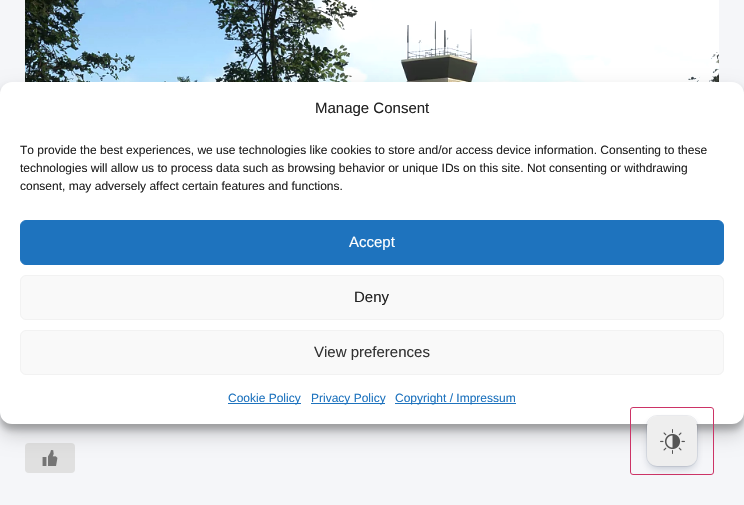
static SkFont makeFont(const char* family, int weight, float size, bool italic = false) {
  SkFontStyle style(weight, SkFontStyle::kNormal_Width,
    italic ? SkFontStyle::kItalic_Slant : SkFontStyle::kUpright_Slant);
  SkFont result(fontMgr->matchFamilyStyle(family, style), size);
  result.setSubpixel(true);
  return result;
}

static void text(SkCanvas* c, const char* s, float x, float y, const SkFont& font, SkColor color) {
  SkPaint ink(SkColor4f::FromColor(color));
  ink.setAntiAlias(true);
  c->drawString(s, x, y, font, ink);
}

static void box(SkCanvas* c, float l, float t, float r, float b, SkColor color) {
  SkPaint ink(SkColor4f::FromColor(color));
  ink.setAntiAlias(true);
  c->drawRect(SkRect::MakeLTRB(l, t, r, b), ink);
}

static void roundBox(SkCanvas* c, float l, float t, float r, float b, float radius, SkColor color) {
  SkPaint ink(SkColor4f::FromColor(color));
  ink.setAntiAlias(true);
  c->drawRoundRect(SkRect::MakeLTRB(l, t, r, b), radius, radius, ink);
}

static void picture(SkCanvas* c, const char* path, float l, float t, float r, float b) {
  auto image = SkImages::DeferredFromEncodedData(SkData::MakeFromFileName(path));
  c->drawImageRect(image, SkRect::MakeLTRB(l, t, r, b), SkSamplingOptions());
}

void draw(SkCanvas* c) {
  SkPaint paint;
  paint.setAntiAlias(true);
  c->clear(0xfff5f6f9);
  picture(c, "img_01.png", 25, 0, 719, 82);
  roundBox(c, 25, 443, 75, 473, 4, 0xffe0e0e0);
  picture(c, "img_02.png", 42, 450, 58, 466);
  paint.setColor(0x3b000000);
  paint.setMaskFilter(SkMaskFilter::MakeBlur(kNormal_SkBlurStyle, 3));
  c->drawRoundRect(SkRect::MakeLTRB(0, 88, 744, 430), 12, 12, paint);
  paint.setMaskFilter(nullptr);
  paint.setColor(0x30000000);
  paint.setMaskFilter(SkMaskFilter::MakeBlur(kNormal_SkBlurStyle, 10));
  c->drawRoundRect(SkRect::MakeLTRB(0, 92, 744, 434), 12, 12, paint);
  paint.setMaskFilter(nullptr);
  roundBox(c, 0, 82, 744, 424, 12, 0xffffffff);
  SkFont face1 = makeFont("Liberation Sans", 400, 15);
  text(c, "Manage Consent", 315, 113, face1, 0xff222222);
  SkFont face2 = makeFont("Liberation Sans", 400, 12);
  text(c, "To provide the best experiences, we use technologies like cookies to store and/or access device information. Consenting to these", 20, 154, face2, 0xff222222);
  text(c, "technologies will allow us to process data such as browsing behavior or unique IDs on this site. Not consenting or withdrawing", 20, 172, face2, 0xff222222);
  text(c, "consent, may adversely affect certain features and functions.", 20, 190, face2, 0xff222222);
  paint.setColor(0xff1e73be);
  c->drawRoundRect(SkRect::MakeLTRB(20.5f, 220.5f, 723.5f, 264.5f), 5.5f, 5.5f, paint);
  paint.setStyle(SkPaint::kStroke_Style);
  paint.setStrokeWidth(1);
  c->drawRoundRect(SkRect::MakeLTRB(20.5f, 220.5f, 723.5f, 264.5f), 5.5f, 5.5f, paint);
  text(c, "Accept", 349, 247, face1, 0xffffffff);
  paint.setStyle(SkPaint::kFill_Style);
  paint.setColor(0xfff9f9f9);
  c->drawRoundRect(SkRect::MakeLTRB(20.5f, 275.5f, 723.5f, 319.5f), 5.5f, 5.5f, paint);
  paint.setStyle(SkPaint::kStroke_Style);
  paint.setColor(0xfff2f2f2);
  c->drawRoundRect(SkRect::MakeLTRB(20.5f, 275.5f, 723.5f, 319.5f), 5.5f, 5.5f, paint);
  text(c, "Deny", 354, 302, face1, 0xff222222);
  paint.setStyle(SkPaint::kFill_Style);
  paint.setColor(0xfff9f9f9);
  c->drawRoundRect(SkRect::MakeLTRB(20.5f, 330.5f, 723.5f, 374.5f), 5.5f, 5.5f, paint);
  paint.setStyle(SkPaint::kStroke_Style);
  paint.setColor(0xfff2f2f2);
  c->drawRoundRect(SkRect::MakeLTRB(20.5f, 330.5f, 723.5f, 374.5f), 5.5f, 5.5f, paint);
  text(c, "View preferences", 314, 357, face1, 0xff333333);
  box(c, 228, 403, 301, 404, 0xff1e73be);
  text(c, "Cookie Policy", 228, 402, face2, 0xff1e73be);
  box(c, 311, 403, 385, 404, 0xff1e73be);
  text(c, "Privacy Policy", 311, 402, face2, 0xff1e73be);
  box(c, 395, 403, 516, 404, 0xff1e73be);
  text(c, "Copyright / Impressum", 395, 402, face2, 0xff1e73be);
  paint.setColor(0xffcc3366);
  c->drawRoundRect(SkRect::MakeLTRB(630.5f, 407.5f, 713.5f, 474.5f), 2.5f, 2.5f, paint);
  paint.setColor(0x14091e42);
  c->drawRoundRect(SkRect::MakeLTRB(646.5f, 415.5f, 697.5f, 466.5f), 10.5f, 10.5f, paint);
  paint.setStyle(SkPaint::kFill_Style);
  paint.setColor(0x40091e42);
  paint.setMaskFilter(SkMaskFilter::MakeBlur(kNormal_SkBlurStyle, 4));
  c->drawRoundRect(SkRect::MakeLTRB(649, 422, 695, 468), 8, 8, paint);
  paint.setMaskFilter(nullptr);
  roundBox(c, 647, 416, 697, 466, 10, 0xffeeeeee);
  picture(c, "img_03.png", 660, 429, 685, 454);
}
